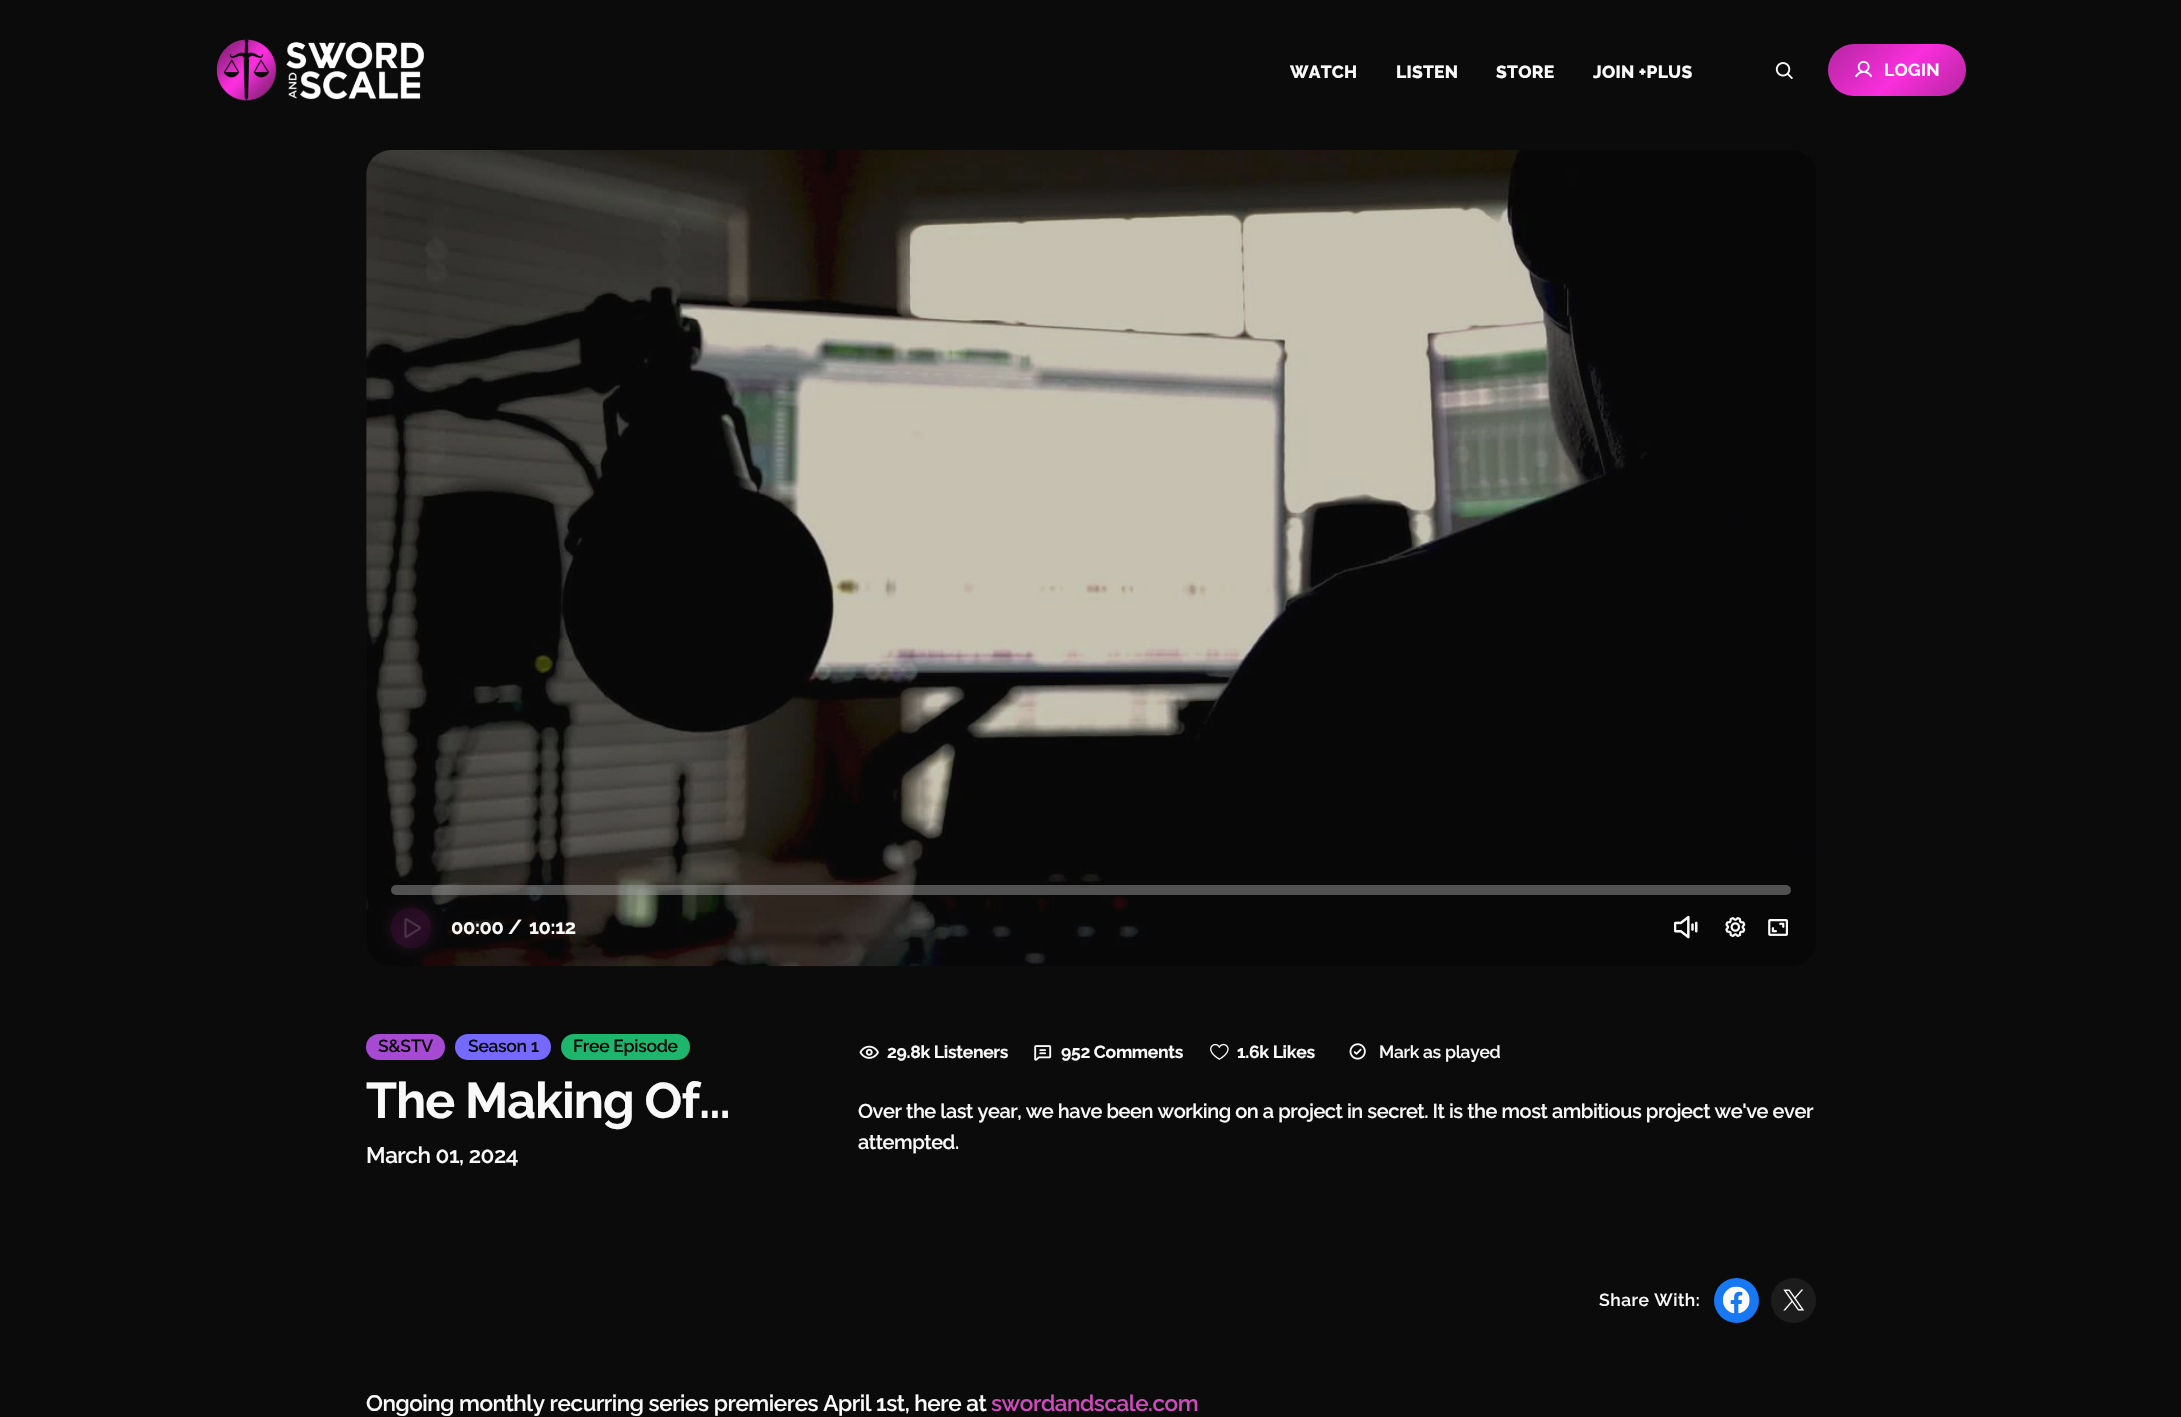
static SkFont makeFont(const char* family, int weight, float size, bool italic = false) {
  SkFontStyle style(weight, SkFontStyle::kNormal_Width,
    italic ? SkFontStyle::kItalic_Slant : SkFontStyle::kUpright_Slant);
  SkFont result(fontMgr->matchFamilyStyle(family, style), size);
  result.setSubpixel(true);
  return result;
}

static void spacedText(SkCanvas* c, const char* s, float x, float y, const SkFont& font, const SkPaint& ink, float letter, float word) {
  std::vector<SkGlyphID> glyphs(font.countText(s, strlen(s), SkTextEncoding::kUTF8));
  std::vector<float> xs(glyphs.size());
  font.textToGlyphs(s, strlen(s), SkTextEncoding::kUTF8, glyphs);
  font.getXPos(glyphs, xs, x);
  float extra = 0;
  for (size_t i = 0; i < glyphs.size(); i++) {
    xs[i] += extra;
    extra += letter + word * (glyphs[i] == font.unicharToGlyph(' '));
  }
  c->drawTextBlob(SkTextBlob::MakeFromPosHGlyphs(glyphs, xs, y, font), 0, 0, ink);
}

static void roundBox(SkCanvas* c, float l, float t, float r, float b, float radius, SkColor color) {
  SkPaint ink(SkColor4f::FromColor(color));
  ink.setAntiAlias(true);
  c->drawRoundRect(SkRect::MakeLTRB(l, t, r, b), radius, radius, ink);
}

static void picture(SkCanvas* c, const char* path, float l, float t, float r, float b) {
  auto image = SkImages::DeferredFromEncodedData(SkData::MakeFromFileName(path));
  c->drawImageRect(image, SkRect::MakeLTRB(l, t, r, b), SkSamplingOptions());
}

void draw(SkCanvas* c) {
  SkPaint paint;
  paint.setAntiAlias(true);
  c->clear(0xff0b0b0b);
  picture(c, "img_01.png", 216, 39, 424, 101);
  SkFont face1 = makeFont("Raleway", 800, 17.5f);
  paint.setColor(0xfff9f9f9);
  spacedText(c, "WATCH", 1290, 78, face1, paint, 0.25f, 0);
  spacedText(c, "LISTEN", 1396, 78, face1, paint, 0.25f, 0);
  spacedText(c, "STORE", 1496, 78, face1, paint, 0.25f, 0);
  spacedText(c, "JOIN +PLUS", 1593, 78, face1, paint, 0.25f, 0);
  picture(c, "img_02.png", 1775, 62, 1793, 79);
  {
    const SkColor colors[] = {0xffb3269f, 0xfffa2edd, 0xffb3269f};
    const float stops[] = {0, 0.53f, 1};
    const SkPoint ends[] = {{1849, 22}, {1945, 118}};
    paint.setShader(SkGradientShader::MakeLinear(ends, colors, stops, 3, SkTileMode::kClamp));
    paint.setAlpha(255);
  }
  c->drawRoundRect(SkRect::MakeLTRB(1828, 44, 1966, 96), 26, 26, paint);
  picture(c, "img_03.png", 1855, 60, 1872, 78);
  SkFont face2 = makeFont("Raleway", 700, 17.5f);
  paint.setShader(nullptr);
  paint.setColor(0xfff9f9f9);
  spacedText(c, "LOGIN", 1884, 76, face2, paint, 0.25f, 0);
  picture(c, "img_04.png", 366, 150, 1816, 967);
  roundBox(c, 366, 150, 1816, 966, 25, 0x401c1c1c);
  roundBox(c, 391, 885, 1791, 895, 5, 0x80999999);
  paint.setColor(0x26d04abd);
  paint.setMaskFilter(SkMaskFilter::MakeBlur(kNormal_SkBlurStyle, 7));
  c->drawRoundRect(SkRect::MakeLTRB(391, 908, 431, 948), 20, 20, paint);
  paint.setMaskFilter(nullptr);
  {
    const SkColor colors[] = {0xff210c1e, 0xff2b0d27, 0xff210c1e};
    const float stops[] = {0, 0.53f, 1};
    const SkPoint ends[] = {{391, 908}, {431, 948}};
    paint.setShader(SkGradientShader::MakeLinear(ends, colors, stops, 3, SkTileMode::kClamp));
    paint.setAlpha(255);
  }
  c->drawCircle(411, 928, 20, paint);
  picture(c, "img_05.png", 404, 918, 421, 938);
  SkFont face3 = makeFont("Raleway", 700, 20);
  paint.setShader(nullptr);
  paint.setColor(0xfff9f9f9);
  spacedText(c, "00:00 /", 451, 934, face3, paint, -0.3f, 0);
  spacedText(c, "10:12", 529, 934, face3, paint, -0.3f, 0);
  picture(c, "img_06.png", 1674, 915, 1698, 939);
  picture(c, "img_07.png", 1725, 917, 1746, 937);
  picture(c, "img_08.png", 1768, 919, 1788, 936);
  roundBox(c, 366, 1034, 445, 1060, 13, 0xffa74ad3);
  SkFont face4 = makeFont("Raleway", 600, 17.5f);
  paint.setColor(0xff0b0b0b);
  spacedText(c, "S&STV", 378, 1052, face4, paint, -0.3f, 0);
  roundBox(c, 455, 1034, 551, 1060, 13, 0xff7569ff);
  spacedText(c, "Season 1", 468, 1052, face4, paint, -0.3f, 0);
  roundBox(c, 561, 1034, 690, 1060, 13, 0xff1eb66d);
  spacedText(c, "Free Episode", 573, 1052, face4, paint, -0.3f, 0);
  SkFont face5 = makeFont("Raleway", 700, 50);
  paint.setColor(0xfff9f9f9);
  spacedText(c, "The Making Of...", 366, 1118, face5, paint, -1, 0);
  SkFont face6 = makeFont("Raleway", 600, 22.5f);
  spacedText(c, "March 01, 2024", 366, 1163, face6, paint, -0.45f, 0);
  picture(c, "img_09.png", 859, 1045, 879, 1059);
  spacedText(c, "29.8k Listeners", 887, 1058, face2, paint, -0.3f, 0);
  picture(c, "img_10.png", 1034, 1045, 1052, 1061);
  spacedText(c, "952 Comments", 1061, 1058, face2, paint, -0.3f, 0);
  picture(c, "img_11.png", 1210, 1043, 1229, 1060);
  spacedText(c, "1.6k Likes", 1237, 1058, face2, paint, -0.3f, 0);
  picture(c, "img_12.png", 1349, 1043, 1366, 1060);
  spacedText(c, "Mark as played", 1379, 1058, face4, paint, -0.3f, 0);
  SkFont face7 = makeFont("Raleway", 600, 20);
  spacedText(c, "Over the last year, we have been working on a project in secret. It is the most ambitious project we've ever", 858, 1118, face7, paint, -0.45f, 0);
  spacedText(c, "attempted.", 858, 1149, face7, paint, -0.45f, 0);
  spacedText(c, "Share With:", 1599, 1306, face4, paint, 0.5f, 0);
  paint.setColor(0xff1877f2);
  c->drawCircle(1736.5f, 1300.5f, 22.5f, paint);
  picture(c, "img_13.png", 1723, 1286, 1750, 1314);
  paint.setColor(0xff1c1c1c);
  c->drawCircle(1793.5f, 1300.5f, 22.5f, paint);
  picture(c, "img_14.png", 1783, 1289, 1805, 1311);
  paint.setColor(0xfff9f9f9);
  spacedText(c, "Ongoing monthly recurring series premieres April 1st, here at", 366, 1411, face6, paint, -0.45f, 0);
  paint.setColor(0xffd04abd);
  spacedText(c, "swordandscale.com", 991, 1411, face6, paint, -0.45f, 0);
}
